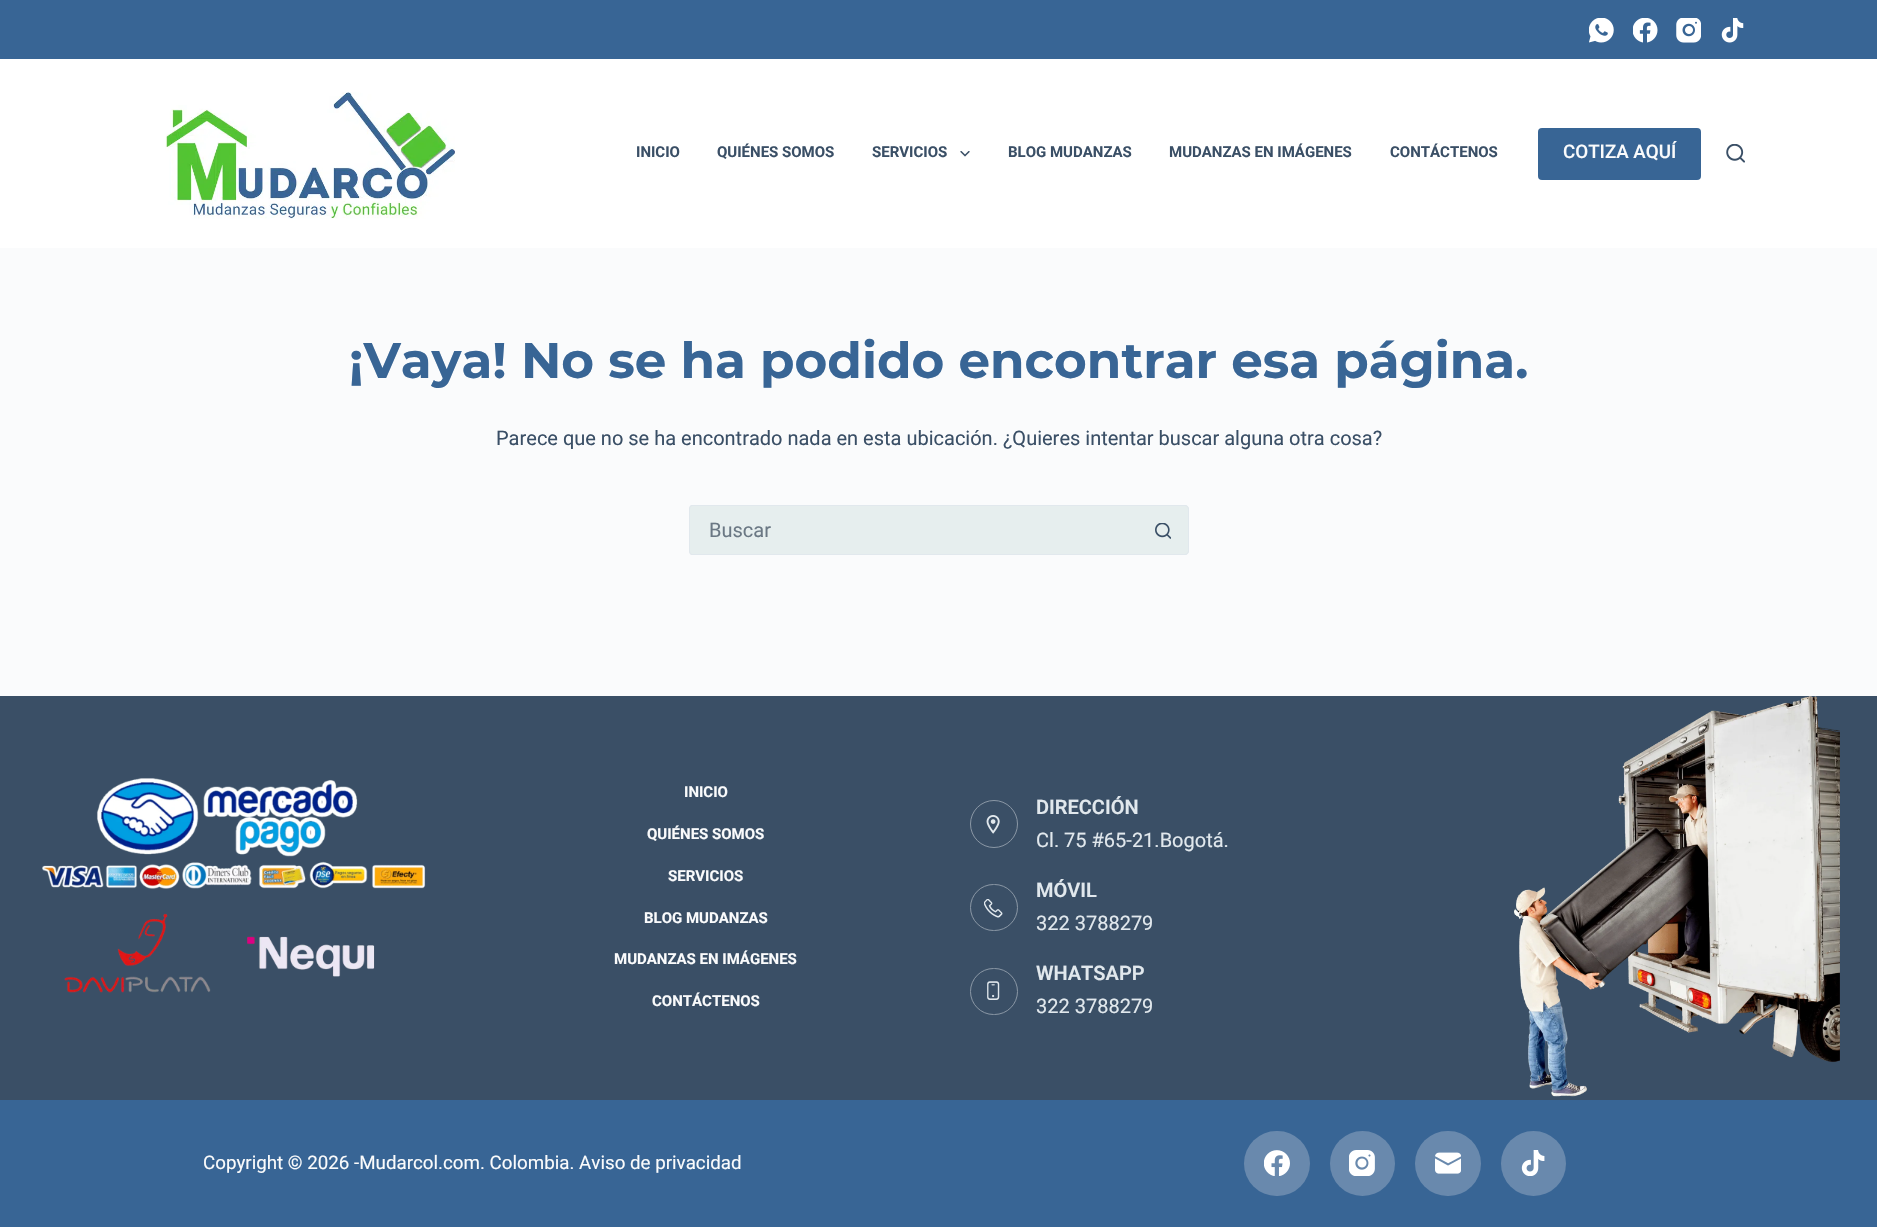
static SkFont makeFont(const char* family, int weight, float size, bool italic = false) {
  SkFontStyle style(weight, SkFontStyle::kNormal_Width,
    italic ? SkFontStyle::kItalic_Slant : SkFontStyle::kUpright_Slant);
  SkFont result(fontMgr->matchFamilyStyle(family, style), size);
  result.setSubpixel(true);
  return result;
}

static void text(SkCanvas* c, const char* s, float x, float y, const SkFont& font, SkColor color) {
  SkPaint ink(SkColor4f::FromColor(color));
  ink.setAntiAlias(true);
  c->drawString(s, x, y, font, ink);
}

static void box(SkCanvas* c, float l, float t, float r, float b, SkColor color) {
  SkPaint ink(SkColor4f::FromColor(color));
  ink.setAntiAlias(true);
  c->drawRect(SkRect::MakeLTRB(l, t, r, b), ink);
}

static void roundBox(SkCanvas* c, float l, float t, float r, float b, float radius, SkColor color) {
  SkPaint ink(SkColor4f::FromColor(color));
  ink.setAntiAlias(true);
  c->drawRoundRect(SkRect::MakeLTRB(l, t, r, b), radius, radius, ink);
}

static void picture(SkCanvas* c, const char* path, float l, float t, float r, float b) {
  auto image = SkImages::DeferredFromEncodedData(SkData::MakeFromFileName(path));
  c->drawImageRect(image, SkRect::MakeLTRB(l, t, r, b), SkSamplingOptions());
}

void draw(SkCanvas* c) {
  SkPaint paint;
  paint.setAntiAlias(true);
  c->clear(0xfffafbfc);
  box(c, 0, 0, 1877, 59, 0xff386595);
  picture(c, "img_01.png", 1589, 18, 1614, 43);
  picture(c, "img_02.png", 1633, 18, 1658, 43);
  picture(c, "img_03.png", 1676, 18, 1701, 43);
  picture(c, "img_04.png", 1721, 18, 1744, 43);
  box(c, 0, 59, 1877, 248, 0xffffffff);
  picture(c, "img_05.png", 165, 92, 455, 219);
  SkFont face1 = makeFont("Roboto", 700, 15);
  text(c, "INICIO", 636, 157, face1, 0xff3a4f66);
  text(c, "QUIÉNES SOMOS", 717, 157, face1, 0xff3a4f66);
  text(c, "SERVICIOS", 872, 157, face1, 0xff3a4f66);
  picture(c, "img_06.png", 960, 151, 970, 157);
  text(c, "BLOG MUDANZAS", 1008, 157, face1, 0xff3a4f66);
  text(c, "MUDANZAS EN IMÁGENES", 1169, 157, face1, 0xff3a4f66);
  text(c, "CONTÁCTENOS", 1390, 157, face1, 0xff3a4f66);
  roundBox(c, 1538, 128, 1701, 180, 4, 0xff386595);
  SkFont face2 = makeFont("Roboto", 500, 18.75f);
  text(c, "COTIZA AQUÍ", 1563, 158, face2, 0xfffafbfc);
  picture(c, "img_07.png", 1726, 144, 1745, 163);
  SkFont face3 = makeFont("Montserrat", 700, 50);
  text(c, "¡Vaya! No se ha podido encontrar esa página.", 349, 378, face3, 0xff386595);
  SkFont face4 = makeFont("Roboto", 400, 20);
  text(c, "Parece que no se ha encontrado nada en esta ubicación. ¿Quieres intentar buscar alguna otra cosa?", 496, 445, face4, 0xff3a4f66);
  paint.setColor(0xffe6eeee);
  c->drawPath(SkPathBuilder().moveTo(693, 505).lineTo(1139, 505).lineTo(1139, 555).lineTo(693, 555).cubicTo(691, 555, 689, 553, 689, 551).lineTo(689, 509).cubicTo(689, 507, 691, 505, 693, 505).close().detach(), paint);
  paint.setColor(0xffe1e8ed);
  c->drawPath(SkPathBuilder(SkPathFillType::kEvenOdd).moveTo(692, 505).lineTo(1139, 505).lineTo(1139, 555).lineTo(692, 555).cubicTo(690, 555, 689, 553, 689, 551).lineTo(689, 509).cubicTo(689, 507, 690, 505, 692, 505).close().moveTo(692, 506).lineTo(1139, 506).lineTo(1139, 554).lineTo(692, 554).cubicTo(691, 554, 690, 553, 690, 551).lineTo(690, 509).cubicTo(690, 507, 691, 506, 692, 506).close().detach(), paint);
  text(c, "Buscar", 709, 537, face4, 0xff6b7884);
  paint.setColor(0xffe6eeee);
  c->drawPath(SkPathBuilder().moveTo(1139, 505).lineTo(1185, 505).cubicTo(1187, 505, 1189, 507, 1189, 509).lineTo(1189, 551).cubicTo(1189, 553, 1187, 555, 1185, 555).lineTo(1139, 555).close().detach(), paint);
  paint.setColor(0xffe1e8ed);
  c->drawPath(SkPathBuilder(SkPathFillType::kEvenOdd).moveTo(1139, 505).lineTo(1185, 505).cubicTo(1187, 505, 1189, 507, 1189, 509).lineTo(1189, 551).cubicTo(1189, 553, 1187, 555, 1185, 555).lineTo(1139, 555).close().moveTo(1139, 506).lineTo(1185, 506).cubicTo(1186, 506, 1188, 507, 1188, 509).lineTo(1188, 551).cubicTo(1188, 553, 1186, 554, 1185, 554).lineTo(1139, 554).close().detach(), paint);
  picture(c, "img_08.png", 1155, 523, 1171, 539);
  box(c, 0, 696, 1877, 1100, 0xff3a4f66);
  picture(c, "img_09.png", 42, 778, 426, 993);
  text(c, "INICIO", 684, 797, face1, 0xfffafbfc);
  text(c, "QUIÉNES SOMOS", 647, 839, face1, 0xfffafbfc);
  text(c, "SERVICIOS", 668, 881, face1, 0xfffafbfc);
  text(c, "BLOG MUDANZAS", 644, 923, face1, 0xfffafbfc);
  text(c, "MUDANZAS EN IMÁGENES", 614, 964, face1, 0xfffafbfc);
  text(c, "CONTÁCTENOS", 652, 1006, face1, 0xfffafbfc);
  paint.setStyle(SkPaint::kStroke_Style);
  paint.setStrokeWidth(1);
  paint.setColor(0xff8a97a5);
  c->drawCircle(994, 824, 23.5f, paint);
  picture(c, "img_10.png", 986, 815, 1000, 834);
  SkFont face5 = makeFont("Roboto", 600, 20);
  text(c, "DIRECCIÓN", 1036, 814, face5, 0xffe1e8ed);
  text(c, "Cl. 75 #65-21.Bogotá.", 1036, 847, face4, 0xffe1e8ed);
  c->drawRoundRect(SkRect::MakeLTRB(970.5f, 884.5f, 1017.5f, 930.5f), 23, 23, paint);
  picture(c, "img_11.png", 984, 899, 1003, 918);
  text(c, "MÓVIL", 1036, 897, face5, 0xffe1e8ed);
  text(c, "322 3788279", 1036, 930, face4, 0xffe1e8ed);
  c->drawRoundRect(SkRect::MakeLTRB(970.5f, 968.5f, 1017.5f, 1014.5f), 23, 23, paint);
  picture(c, "img_12.png", 987, 981, 1000, 1000);
  text(c, "WHATSAPP", 1036, 980, face5, 0xffe1e8ed);
  text(c, "322 3788279", 1036, 1013, face4, 0xffe1e8ed);
  picture(c, "img_13.png", 1514, 696, 1840, 1097);
  box(c, 0, 1100, 1877, 1227, 0xff386595);
  SkFont face6 = makeFont("Roboto", 400, 18.75f);
  text(c, "Copyright © 2026 -Mudarcol.com. Colombia. Aviso de privacidad", 203, 1169, face6, 0xfffafbfc);
  roundBox(c, 1244, 1131, 1310, 1196, 32.5f, 0xff6989ad);
  picture(c, "img_14.png", 1264, 1150, 1290, 1176);
  paint.setStyle(SkPaint::kFill_Style);
  paint.setColor(0xff6989ad);
  c->drawCircle(1362.5f, 1163.5f, 32.5f, paint);
  picture(c, "img_15.png", 1349, 1150, 1375, 1176);
  roundBox(c, 1415, 1131, 1481, 1196, 32.5f, 0xff6989ad);
  picture(c, "img_16.png", 1435, 1152, 1461, 1174);
  c->drawCircle(1533.5f, 1163.5f, 32.5f, paint);
  picture(c, "img_17.png", 1521, 1150, 1545, 1176);
}
